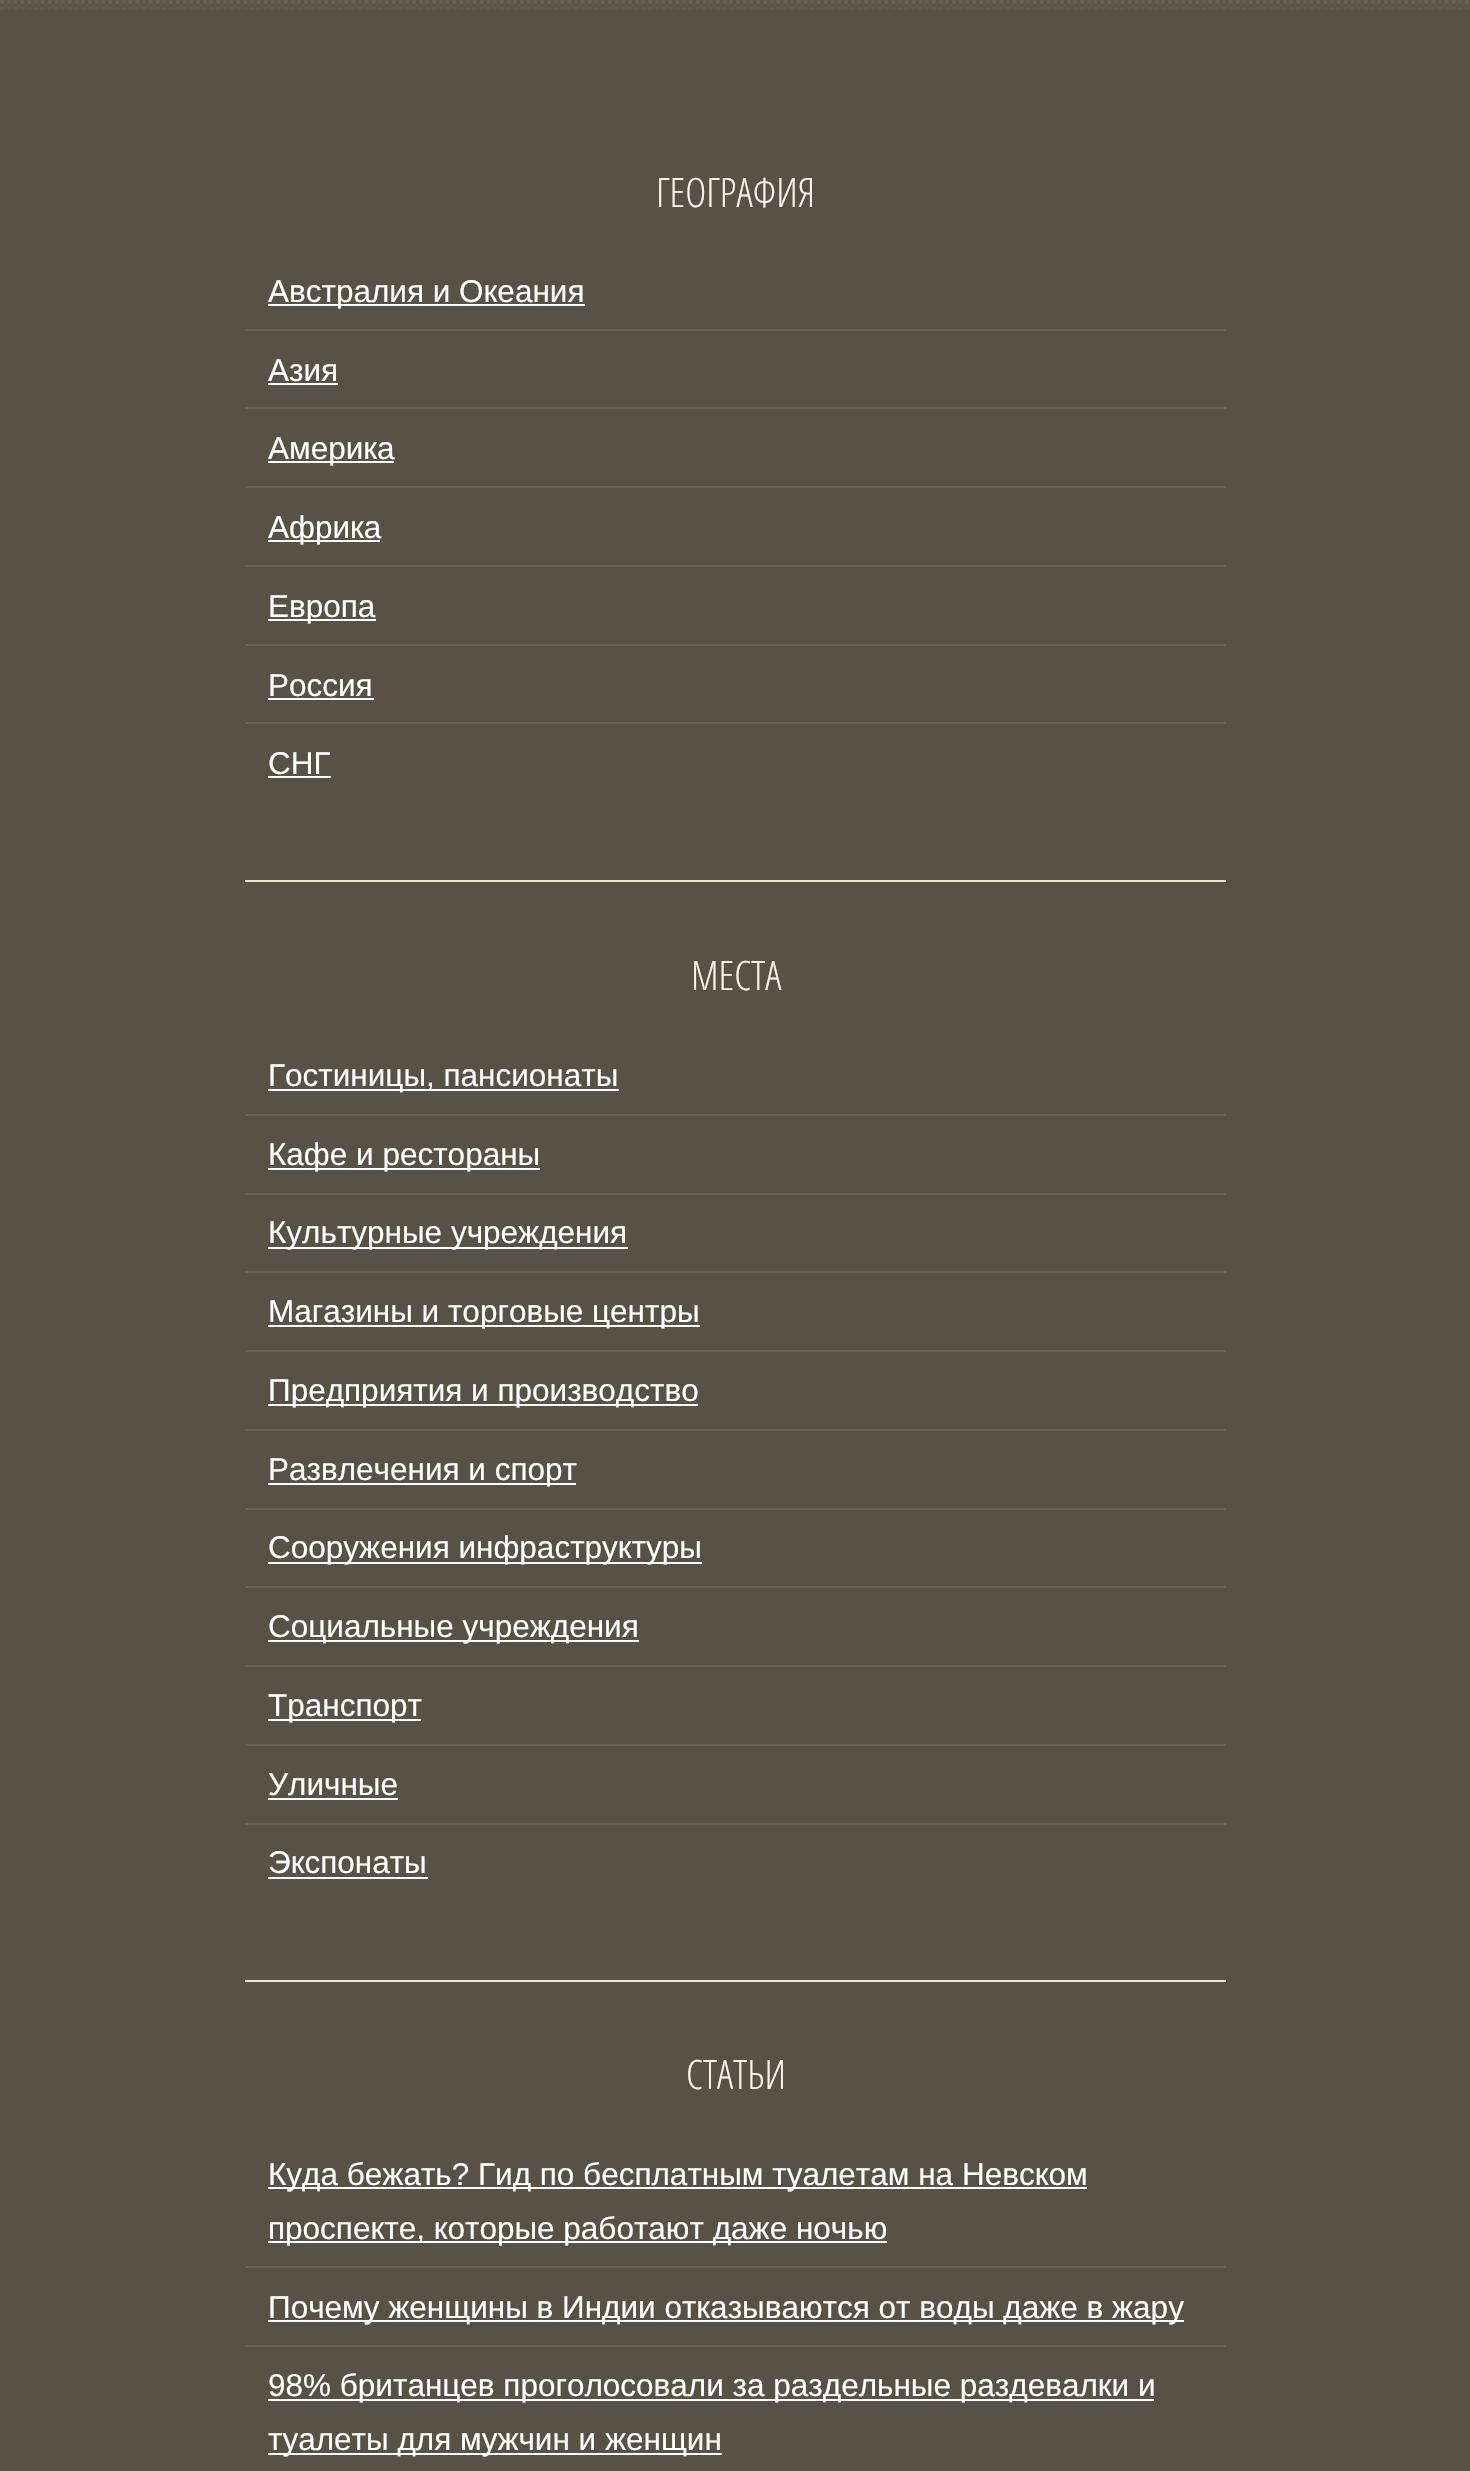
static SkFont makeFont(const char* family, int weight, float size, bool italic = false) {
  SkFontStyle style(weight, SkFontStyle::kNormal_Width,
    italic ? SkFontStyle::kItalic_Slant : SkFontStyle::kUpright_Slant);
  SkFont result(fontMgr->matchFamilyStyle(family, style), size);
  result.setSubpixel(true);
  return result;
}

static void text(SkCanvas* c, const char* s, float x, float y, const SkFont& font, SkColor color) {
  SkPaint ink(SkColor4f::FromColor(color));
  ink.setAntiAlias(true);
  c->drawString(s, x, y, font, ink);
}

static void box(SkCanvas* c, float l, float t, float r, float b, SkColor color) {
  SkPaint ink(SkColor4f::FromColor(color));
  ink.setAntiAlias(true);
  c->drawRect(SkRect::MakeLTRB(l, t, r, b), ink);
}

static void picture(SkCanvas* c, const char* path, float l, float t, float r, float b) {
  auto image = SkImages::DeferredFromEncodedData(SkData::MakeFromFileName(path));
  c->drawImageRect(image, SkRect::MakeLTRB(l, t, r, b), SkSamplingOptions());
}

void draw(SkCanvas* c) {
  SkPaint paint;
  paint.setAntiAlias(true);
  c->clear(0xff585246);
  picture(c, "img_01.png", 0, 0, 1470, 10);
  box(c, 245, 880, 1226, 882, 0xfff3e4c8);
  SkFont face1 = makeFont("Open Sans Condensed", 300, 40.5f);
  text(c, "ГЕОГРАФИЯ", 656, 207, face1, 0xfff9f5ed);
  box(c, 245, 329, 1226, 331, 0xff696359);
  box(c, 268, 304, 585, 306, 0xffffffff);
  SkFont face2 = makeFont("Liberation Sans", 400, 31.5f);
  text(c, "Австралия и Океания", 268, 302, face2, 0xffffffff);
  box(c, 245, 407, 1226, 409, 0xff696359);
  text(c, "Азия", 268, 381, face2, 0xffffffff);
  box(c, 268, 383, 338, 385, 0xffffffff);
  box(c, 245, 486, 1226, 488, 0xff696359);
  box(c, 268, 461, 394, 463, 0xffffffff);
  text(c, "Америка", 268, 459, face2, 0xffffffff);
  box(c, 245, 565, 1226, 567, 0xff696359);
  box(c, 268, 540, 380, 542, 0xffffffff);
  text(c, "Африка", 268, 538, face2, 0xffffffff);
  box(c, 245, 644, 1226, 646, 0xff696359);
  box(c, 268, 619, 376, 621, 0xffffffff);
  text(c, "Европа", 268, 617, face2, 0xffffffff);
  box(c, 245, 722, 1226, 724, 0xff696359);
  text(c, "Россия", 268, 696, face2, 0xffffffff);
  box(c, 268, 698, 374, 700, 0xffffffff);
  text(c, "СНГ", 268, 774, face2, 0xffffffff);
  box(c, 268, 776, 331, 778, 0xffffffff);
  box(c, 245, 1980, 1226, 1982, 0xfff3e4c8);
  text(c, "МЕСТА", 691, 990, face1, 0xfff9f5ed);
  box(c, 245, 1114, 1226, 1116, 0xff696359);
  box(c, 268, 1089, 619, 1091, 0xffffffff);
  text(c, "Гостиницы, пансионаты", 268, 1086, face2, 0xffffffff);
  box(c, 245, 1193, 1226, 1195, 0xff696359);
  box(c, 268, 1168, 540, 1170, 0xffffffff);
  text(c, "Кафе и рестораны", 268, 1165, face2, 0xffffffff);
  box(c, 245, 1271, 1226, 1273, 0xff696359);
  box(c, 268, 1247, 628, 1249, 0xffffffff);
  text(c, "Культурные учреждения", 268, 1243, face2, 0xffffffff);
  box(c, 245, 1350, 1226, 1352, 0xff696359);
  box(c, 268, 1325, 700, 1327, 0xffffffff);
  text(c, "Магазины и торговые центры", 268, 1322, face2, 0xffffffff);
  box(c, 245, 1429, 1226, 1431, 0xff696359);
  box(c, 268, 1404, 698, 1406, 0xffffffff);
  text(c, "Предприятия и производство", 268, 1401, face2, 0xffffffff);
  box(c, 245, 1508, 1226, 1510, 0xff696359);
  box(c, 268, 1483, 576, 1485, 0xffffffff);
  text(c, "Развлечения и спорт", 268, 1480, face2, 0xffffffff);
  box(c, 245, 1586, 1226, 1588, 0xff696359);
  box(c, 268, 1562, 702, 1564, 0xffffffff);
  text(c, "Сооружения инфраструктуры", 268, 1558, face2, 0xffffffff);
  box(c, 245, 1665, 1226, 1667, 0xff696359);
  box(c, 268, 1640, 639, 1642, 0xffffffff);
  text(c, "Социальные учреждения", 268, 1637, face2, 0xffffffff);
  box(c, 245, 1744, 1226, 1746, 0xff696359);
  box(c, 268, 1719, 421, 1721, 0xffffffff);
  text(c, "Транспорт", 268, 1716, face2, 0xffffffff);
  box(c, 245, 1823, 1226, 1825, 0xff696359);
  text(c, "Уличные", 268, 1795, face2, 0xffffffff);
  box(c, 268, 1798, 398, 1800, 0xffffffff);
  text(c, "Экспонаты", 268, 1873, face2, 0xffffffff);
  box(c, 268, 1877, 428, 1879, 0xffffffff);
  text(c, "СТАТЬИ", 686, 2089, face1, 0xfff9f5ed);
  box(c, 245, 2266, 1226, 2268, 0xff696359);
  box(c, 268, 2187, 1087, 2189, 0xffffffff);
  text(c, "Куда бежать? Гид по бесплатным туалетам на Невском", 268, 2185, face2, 0xffffffff);
  box(c, 268, 2241, 887, 2243, 0xffffffff);
  text(c, "проспекте, которые работают даже ночью", 268, 2239, face2, 0xffffffff);
  box(c, 245, 2345, 1226, 2347, 0xff696359);
  box(c, 268, 2320, 1184, 2322, 0xffffffff);
  text(c, "Почему женщины в Индии отказываются от воды даже в жару", 268, 2318, face2, 0xffffffff);
  box(c, 268, 2399, 1154, 2401, 0xffffffff);
  text(c, "98% британцев проголосовали за раздельные раздевалки и", 268, 2396, face2, 0xffffffff);
  box(c, 268, 2453, 722, 2455, 0xffffffff);
  text(c, "туалеты для мужчин и женщин", 268, 2450, face2, 0xffffffff);
}
